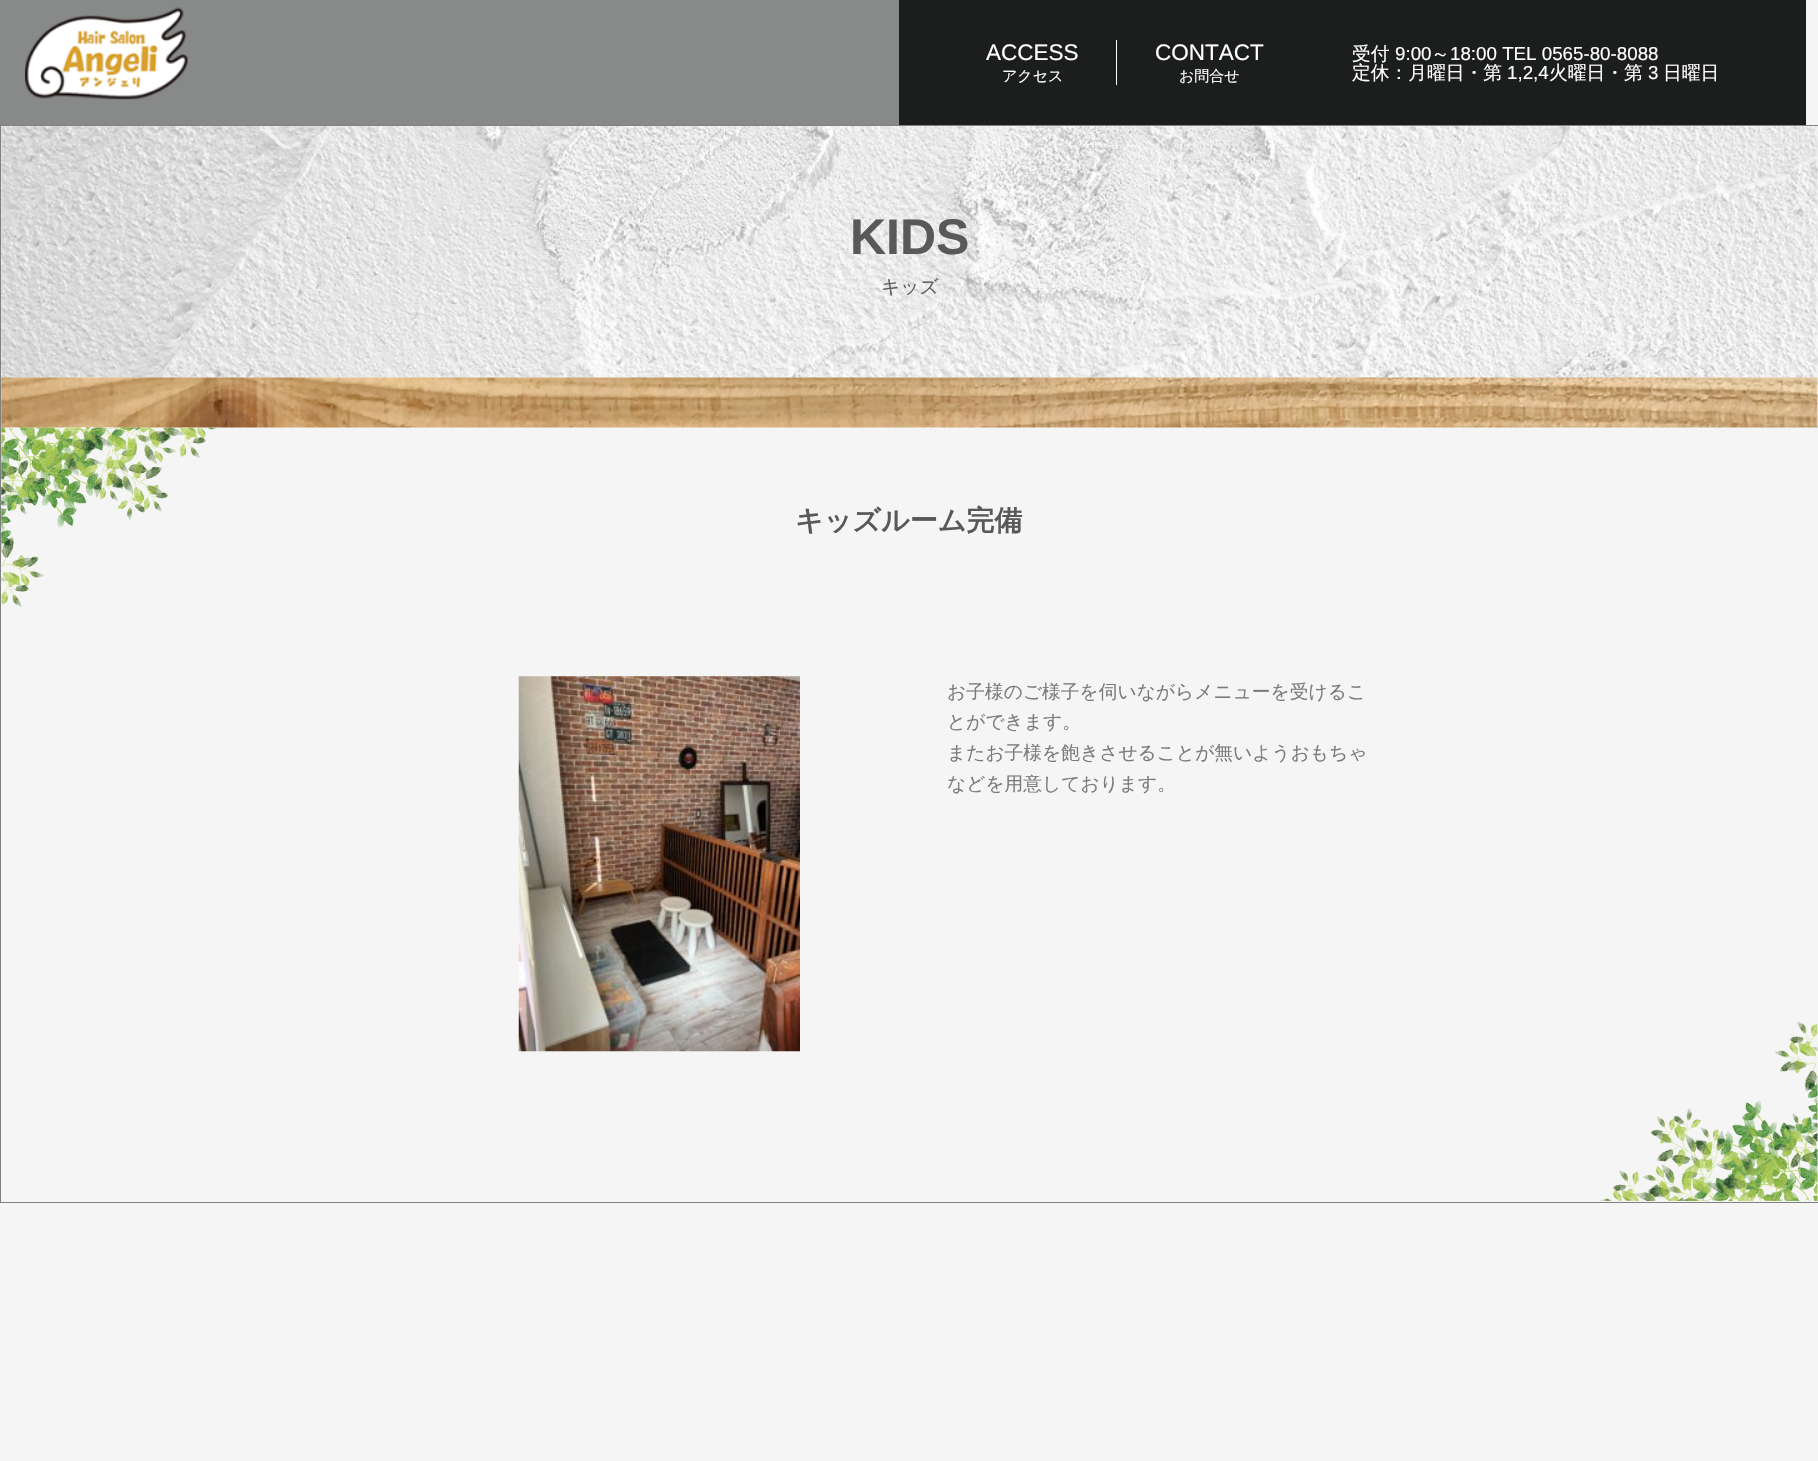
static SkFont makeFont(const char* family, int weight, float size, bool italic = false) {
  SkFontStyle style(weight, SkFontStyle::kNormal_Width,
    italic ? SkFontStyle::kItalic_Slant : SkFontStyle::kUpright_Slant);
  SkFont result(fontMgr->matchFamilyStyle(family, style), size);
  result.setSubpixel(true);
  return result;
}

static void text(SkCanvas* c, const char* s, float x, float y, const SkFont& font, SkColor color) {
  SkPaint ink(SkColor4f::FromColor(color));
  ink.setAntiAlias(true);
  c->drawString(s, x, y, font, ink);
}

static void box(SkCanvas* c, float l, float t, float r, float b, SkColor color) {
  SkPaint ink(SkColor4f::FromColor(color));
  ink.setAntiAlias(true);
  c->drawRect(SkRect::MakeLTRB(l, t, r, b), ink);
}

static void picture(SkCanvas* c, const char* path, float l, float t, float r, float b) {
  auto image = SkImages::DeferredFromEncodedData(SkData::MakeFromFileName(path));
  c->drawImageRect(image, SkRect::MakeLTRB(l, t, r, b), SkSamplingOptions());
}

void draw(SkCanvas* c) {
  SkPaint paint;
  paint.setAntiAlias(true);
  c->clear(0xfff5f5f5);
  box(c, 0, 0, 899, 125, 0xff888989);
  picture(c, "img_01.png", 25, 7, 188, 100);
  box(c, 899, 0, 1806, 125, 0xff1c1d1d);
  SkFont face1 = makeFont("Liberation Sans", 400, 22.5f);
  text(c, "ACCESS", 986, 60, face1, 0xffffffff);
  SkFont face2 = makeFont("WenQuanYi Zen Hei", 500, 15);
  text(c, "アクセス", 1002, 81, face2, 0xffffffff);
  box(c, 1116, 40, 1117, 85, 0xffffffff);
  text(c, "CONTACT", 1155, 60, face1, 0xffffffff);
  text(c, "お問合せ", 1179, 81, face2, 0xffffffff);
  SkFont face3 = makeFont("WenQuanYi Zen Hei", 500, 18.75f);
  text(c, "受付", 1352, 60, face3, 0xffffffff);
  SkFont face4 = makeFont("Liberation Sans", 400, 18.75f);
  text(c, "9:00", 1395, 60, face4, 0xffffffff);
  text(c, "～", 1431, 60, face3, 0xffffffff);
  text(c, "18:00 TEL 0565-80-8088", 1450, 60, face4, 0xffffffff);
  text(c, "定休：月曜日・第", 1352, 79, face3, 0xffffffff);
  text(c, "1,2,4", 1507, 79, face4, 0xffffffff);
  text(c, "火曜日・第", 1549, 79, face3, 0xffffffff);
  text(c, "3", 1648, 79, face4, 0xffffffff);
  text(c, "日曜日", 1663, 79, face3, 0xffffffff);
  paint.setStyle(SkPaint::kStroke_Style);
  paint.setStrokeWidth(1);
  paint.setColor(0xff808080);
  c->drawRect(SkRect::MakeLTRB(0.5f, 125.5f, 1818.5f, 1202.5f), paint);
  picture(c, "img_02.png", 1, 126, 1818, 378);
  SkFont face5 = makeFont("Liberation Sans", 700, 50);
  text(c, "KIDS", 850, 254, face5, 0xff595959);
  text(c, "キッズ", 881, 293, face3, 0xff595959);
  picture(c, "img_03.png", 1, 377, 1818, 428);
  picture(c, "img_04.png", 1, 427, 219, 607);
  SkFont face6 = makeFont("WenQuanYi Zen Hei", 700, 28);
  text(c, "キッズルーム完備", 795, 530, face6, 0xff595959);
  picture(c, "img_05.png", 518, 676, 800, 1052);
  text(c, "お子様のご様子を伺いながらメニューを受けるこ", 947, 698, face3, 0xff7a7a7a);
  text(c, "とができます。", 947, 728, face3, 0xff7a7a7a);
  text(c, "またお子様を飽きさせることが無いようおもちゃ", 947, 759, face3, 0xff7a7a7a);
  text(c, "などを用意しております。", 947, 790, face3, 0xff7a7a7a);
  picture(c, "img_06.png", 1600, 1021, 1818, 1201);
}
